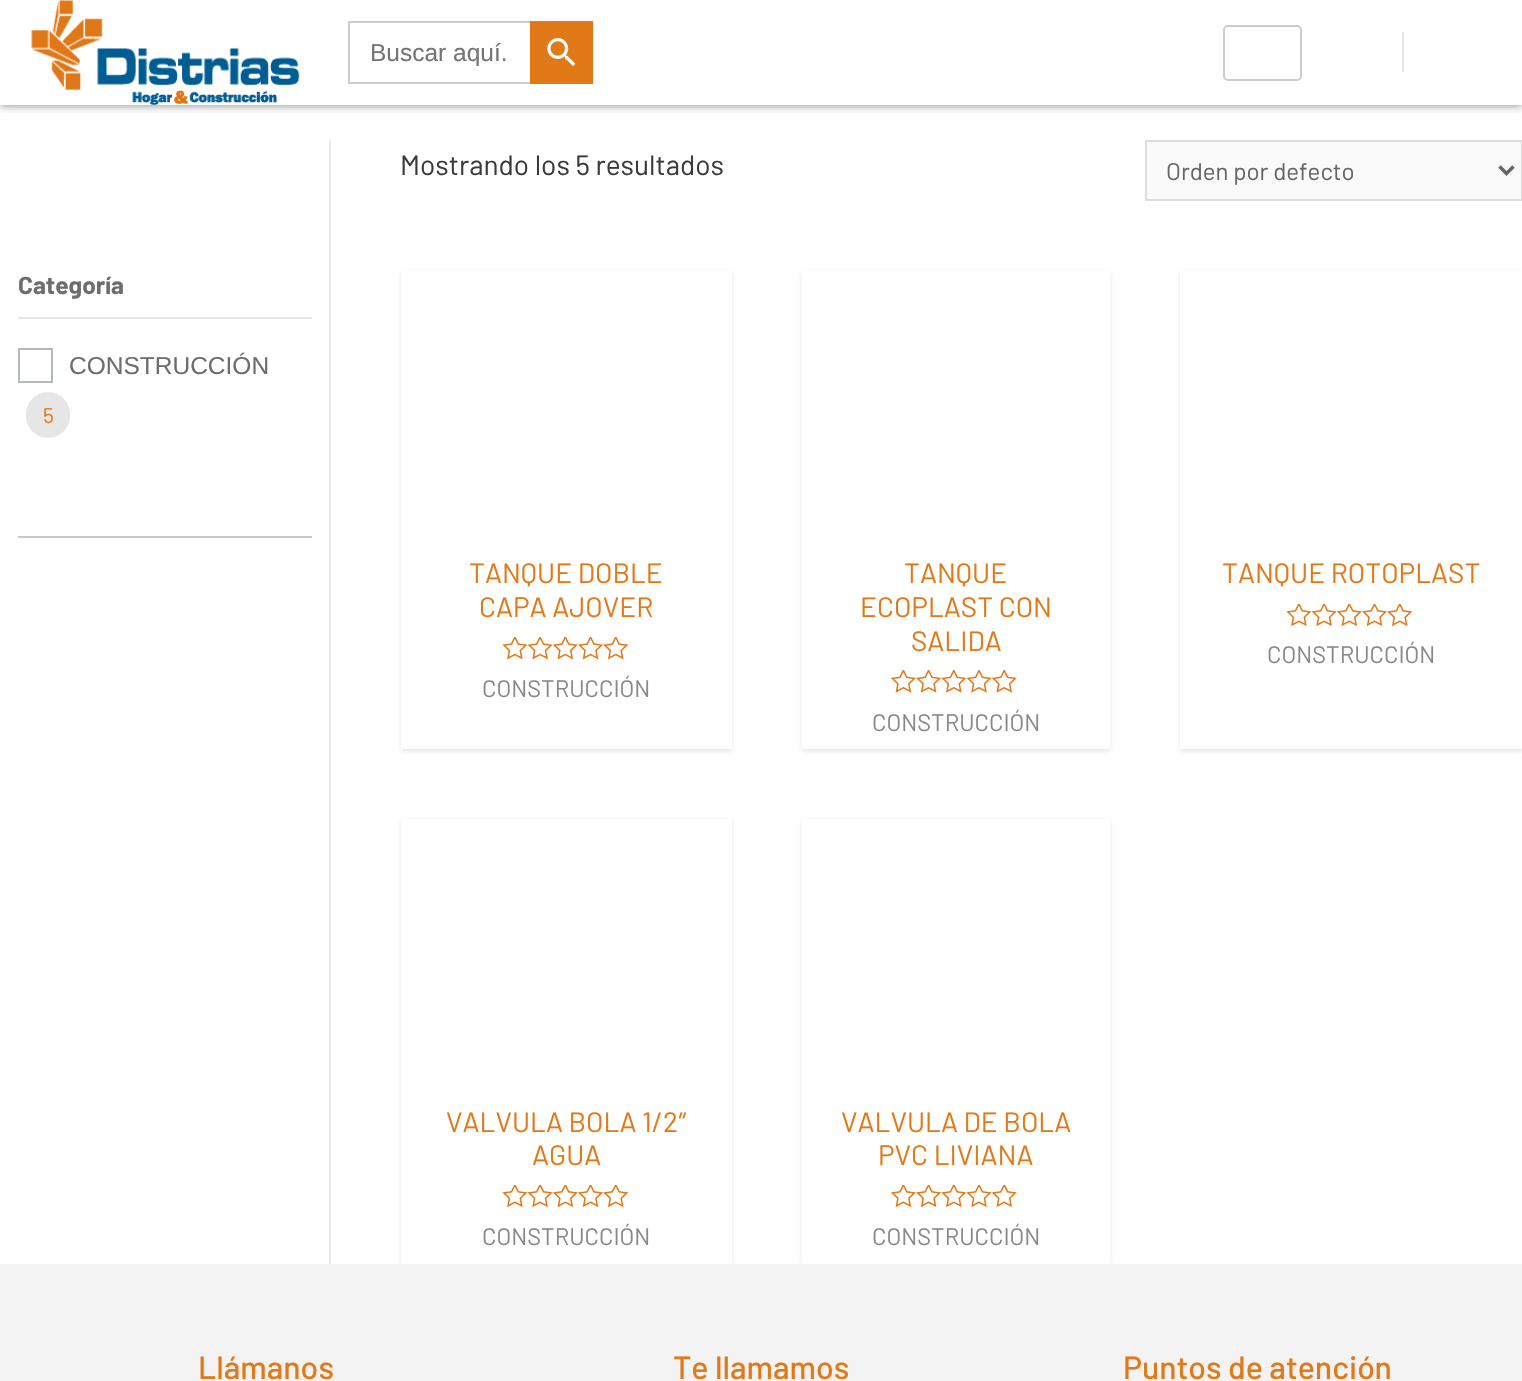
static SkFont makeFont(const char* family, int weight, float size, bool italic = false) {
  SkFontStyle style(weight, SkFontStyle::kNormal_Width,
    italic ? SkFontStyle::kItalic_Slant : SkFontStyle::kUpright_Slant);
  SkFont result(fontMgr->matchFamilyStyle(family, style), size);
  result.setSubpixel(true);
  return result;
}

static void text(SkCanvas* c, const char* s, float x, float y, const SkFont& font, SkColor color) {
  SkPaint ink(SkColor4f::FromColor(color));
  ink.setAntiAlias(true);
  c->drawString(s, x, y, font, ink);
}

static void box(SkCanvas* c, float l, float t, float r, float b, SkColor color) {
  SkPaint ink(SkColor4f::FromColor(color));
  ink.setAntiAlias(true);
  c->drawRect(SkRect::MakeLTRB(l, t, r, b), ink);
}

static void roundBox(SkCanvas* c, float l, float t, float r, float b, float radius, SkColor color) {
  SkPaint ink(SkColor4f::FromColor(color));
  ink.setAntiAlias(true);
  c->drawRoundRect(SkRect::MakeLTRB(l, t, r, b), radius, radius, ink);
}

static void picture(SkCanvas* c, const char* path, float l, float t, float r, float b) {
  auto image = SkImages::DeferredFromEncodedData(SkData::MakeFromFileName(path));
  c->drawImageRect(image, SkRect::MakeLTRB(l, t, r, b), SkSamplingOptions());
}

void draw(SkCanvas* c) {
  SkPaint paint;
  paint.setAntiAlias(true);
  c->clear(0xffffffff);
  c->save();
  c->clipRect(SkRect::MakeLTRB(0, 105, 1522, 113));
  paint.setColor(0x80000000);
  paint.setMaskFilter(SkMaskFilter::MakeBlur(kNormal_SkBlurStyle, 4.5f));
  c->drawRect(SkRect::MakeLTRB(0, 0, 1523, 105), paint);
  paint.setMaskFilter(nullptr);
  c->restore();
  picture(c, "img_01.png", 31, 0, 300, 105);
  box(c, 348, 21, 530, 23, 0xffcccccc);
  box(c, 348, 82, 530, 84, 0xffcccccc);
  box(c, 348, 21, 350, 84, 0xffcccccc);
  SkFont face1 = makeFont("Liberation Sans", 400, 24.5f);
  text(c, "Buscar aquí.", 370, 61, face1, 0xff757575);
  box(c, 530, 21, 593, 84, 0xffe27918);
  picture(c, "img_02.png", 547, 38, 576, 66);
  paint.setStyle(SkPaint::kStroke_Style);
  paint.setStrokeWidth(2);
  paint.setColor(0xffcccccc);
  c->drawRoundRect(SkRect::MakeLTRB(1224, 26, 1301, 80), 4, 4, paint);
  box(c, 1402, 32, 1404, 72, 0xffe6e6e6);
  box(c, 18, 317, 312, 319, 0xffe6e6e6);
  SkFont face2 = makeFont("Barlow", 700, 24.5f);
  text(c, "Categoría", 18, 294, face2, 0xff6d6d6d);
  paint.setColor(0xffb4b9be);
  c->drawRect(SkRect::MakeLTRB(19, 349, 52, 382), paint);
  text(c, "CONSTRUCCIÓN", 69, 374, face1, 0xff6d6d6d);
  roundBox(c, 26, 392, 70, 438, 22, 0xffe6e6e6);
  SkFont face3 = makeFont("Barlow", 400, 21);
  text(c, "5", 43, 423, face3, 0xffe27918);
  box(c, 18, 536, 312, 538, 0xffc8c8c8);
  box(c, 329, 140, 331, 1264, 0xffe9e9e9);
  SkFont face4 = makeFont("Barlow", 400, 28);
  text(c, "Mostrando los 5 resultados", 400, 175, face4, 0xff3a3a3a);
  paint.setStyle(SkPaint::kFill_Style);
  paint.setColor(0xfffafafa);
  c->drawRect(SkRect::MakeLTRB(1146, 141, 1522, 200), paint);
  paint.setStyle(SkPaint::kStroke_Style);
  paint.setColor(0xffdddddd);
  c->drawRect(SkRect::MakeLTRB(1146, 141, 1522, 200), paint);
  paint.setStrokeWidth(3.5f);
  paint.setColor(0xff666666);
  c->drawPath(SkPathBuilder().moveTo(1499.5f, 166.5f).lineTo(1506.5f, 173.5f).lineTo(1513.5f, 166.5f).detach(), paint);
  SkFont face5 = makeFont("Barlow", 400, 24);
  text(c, "Orden por defecto", 1166, 180, face5, 0xff666666);
  c->save();
  c->clipPath(SkPathBuilder(SkPathFillType::kEvenOdd).moveTo(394, 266).lineTo(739, 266).lineTo(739, 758).lineTo(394, 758).close().moveTo(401, 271).lineTo(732, 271).lineTo(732, 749).lineTo(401, 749).close().detach(), true);
  paint.setStyle(SkPaint::kFill_Style);
  paint.setColor(0x1a000000);
  paint.setMaskFilter(SkMaskFilter::MakeBlur(kNormal_SkBlurStyle, 2));
  c->drawRect(SkRect::MakeLTRB(401, 273, 732, 751), paint);
  paint.setMaskFilter(nullptr);
  c->restore();
  text(c, "TANQUE DOBLE", 469, 583, face4, 0xffe27918);
  text(c, "CAPA AJOVER", 479, 617, face4, 0xffe27918);
  picture(c, "img_03.png", 502, 637, 629, 660);
  SkFont face6 = makeFont("Barlow", 400, 23.75f);
  text(c, "CONSTRUCCIÓN", 482, 697, face6, 0xff898989);
  c->save();
  c->clipPath(SkPathBuilder(SkPathFillType::kEvenOdd).moveTo(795, 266).lineTo(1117, 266).lineTo(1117, 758).lineTo(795, 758).close().moveTo(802, 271).lineTo(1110, 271).lineTo(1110, 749).lineTo(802, 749).close().detach(), true);
  paint.setMaskFilter(SkMaskFilter::MakeBlur(kNormal_SkBlurStyle, 2));
  c->drawRect(SkRect::MakeLTRB(802, 273, 1110, 751), paint);
  paint.setMaskFilter(nullptr);
  c->restore();
  text(c, "TANQUE", 904, 583, face4, 0xffe27918);
  text(c, "ECOPLAST CON", 860, 617, face4, 0xffe27918);
  text(c, "SALIDA", 911, 651, face4, 0xffe27918);
  picture(c, "img_04.png", 891, 670, 1017, 693);
  text(c, "CONSTRUCCIÓN", 872, 731, face6, 0xff898989);
  c->save();
  c->clipPath(SkPathBuilder(SkPathFillType::kEvenOdd).moveTo(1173, 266).lineTo(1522, 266).lineTo(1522, 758).lineTo(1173, 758).close().moveTo(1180, 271).lineTo(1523, 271).lineTo(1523, 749).lineTo(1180, 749).close().detach(), true);
  paint.setMaskFilter(SkMaskFilter::MakeBlur(kNormal_SkBlurStyle, 2));
  c->drawRect(SkRect::MakeLTRB(1180, 273, 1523, 751), paint);
  paint.setMaskFilter(nullptr);
  c->restore();
  text(c, "TANQUE ROTOPLAST", 1222, 583, face4, 0xffe27918);
  picture(c, "img_05.png", 1286, 604, 1413, 627);
  text(c, "CONSTRUCCIÓN", 1267, 663, face6, 0xff898989);
  c->save();
  c->clipPath(SkPathBuilder(SkPathFillType::kEvenOdd).moveTo(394, 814).lineTo(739, 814).lineTo(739, 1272).lineTo(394, 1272).close().moveTo(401, 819).lineTo(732, 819).lineTo(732, 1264).lineTo(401, 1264).close().detach(), true);
  paint.setMaskFilter(SkMaskFilter::MakeBlur(kNormal_SkBlurStyle, 2));
  c->drawRect(SkRect::MakeLTRB(401, 821, 732, 1265), paint);
  paint.setMaskFilter(nullptr);
  c->restore();
  text(c, "VALVULA BOLA 1/2″", 446, 1132, face4, 0xffe27918);
  text(c, "AGUA", 532, 1165, face4, 0xffe27918);
  picture(c, "img_05.png", 502, 1185, 629, 1208);
  text(c, "CONSTRUCCIÓN", 482, 1245, face6, 0xff898989);
  c->save();
  c->clipPath(SkPathBuilder(SkPathFillType::kEvenOdd).moveTo(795, 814).lineTo(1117, 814).lineTo(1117, 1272).lineTo(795, 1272).close().moveTo(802, 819).lineTo(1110, 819).lineTo(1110, 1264).lineTo(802, 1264).close().detach(), true);
  paint.setMaskFilter(SkMaskFilter::MakeBlur(kNormal_SkBlurStyle, 2));
  c->drawRect(SkRect::MakeLTRB(802, 821, 1110, 1265), paint);
  paint.setMaskFilter(nullptr);
  c->restore();
  text(c, "VALVULA DE BOLA", 841, 1132, face4, 0xffe27918);
  text(c, "PVC LIVIANA", 878, 1165, face4, 0xffe27918);
  picture(c, "img_06.png", 891, 1185, 1017, 1208);
  text(c, "CONSTRUCCIÓN", 872, 1245, face6, 0xff898989);
  box(c, 0, 1264, 1522, 1381, 0xfff3f3f3);
  SkFont face7 = makeFont("Barlow", 500, 32);
  text(c, "Llámanos", 198, 1379, face7, 0xffe27918);
  text(c, "Te llamamos", 673, 1379, face7, 0xffe27918);
  text(c, "Puntos de atención", 1123, 1379, face7, 0xffe27918);
}
